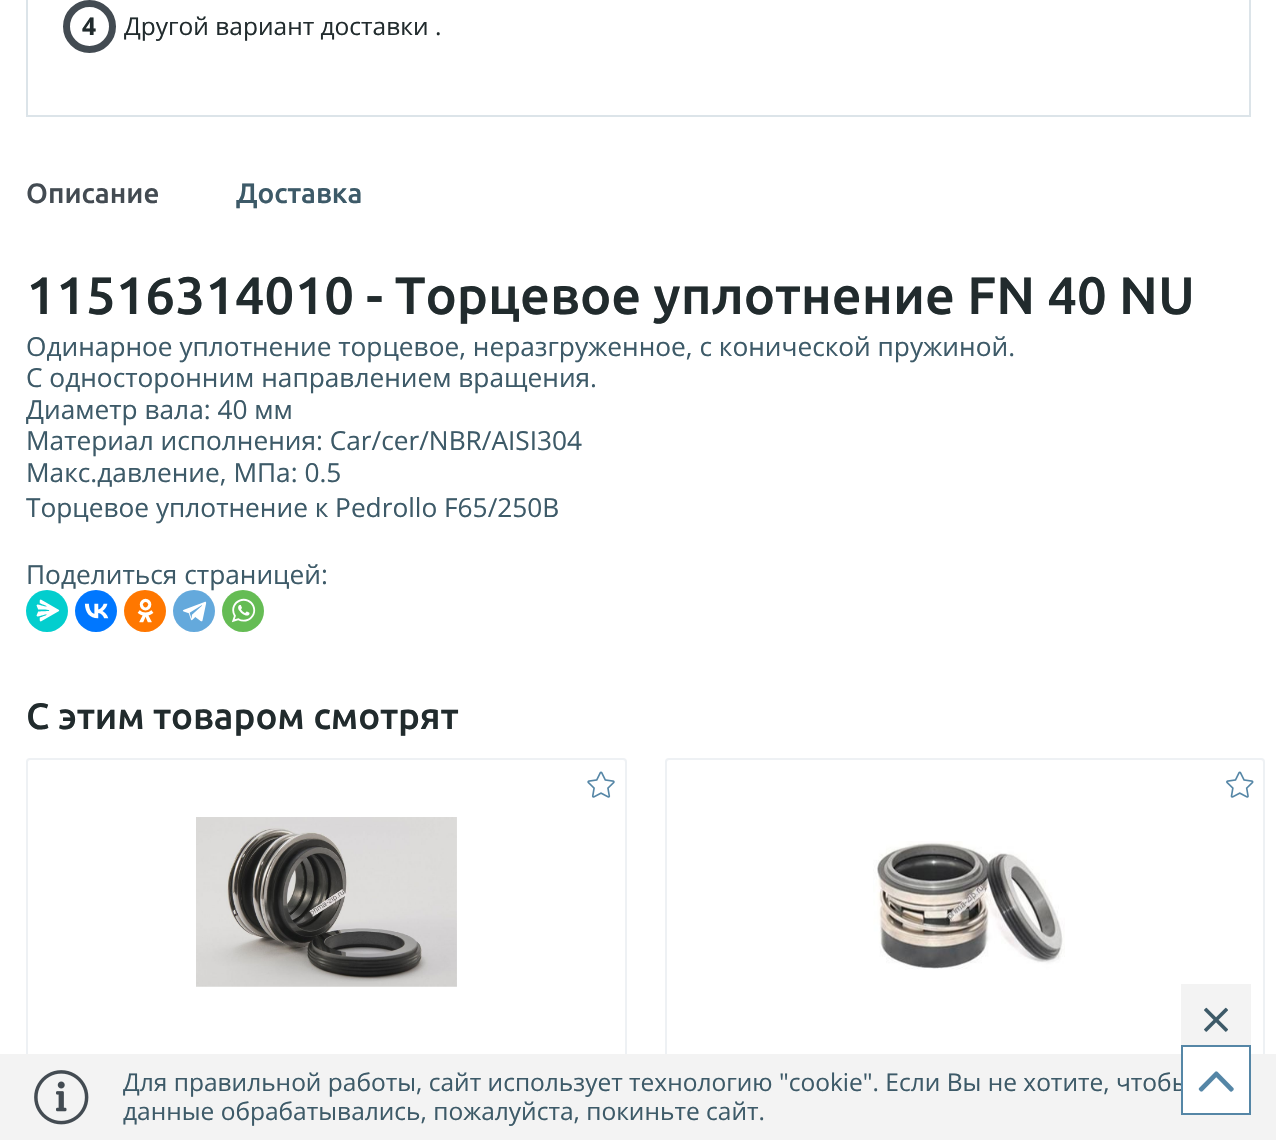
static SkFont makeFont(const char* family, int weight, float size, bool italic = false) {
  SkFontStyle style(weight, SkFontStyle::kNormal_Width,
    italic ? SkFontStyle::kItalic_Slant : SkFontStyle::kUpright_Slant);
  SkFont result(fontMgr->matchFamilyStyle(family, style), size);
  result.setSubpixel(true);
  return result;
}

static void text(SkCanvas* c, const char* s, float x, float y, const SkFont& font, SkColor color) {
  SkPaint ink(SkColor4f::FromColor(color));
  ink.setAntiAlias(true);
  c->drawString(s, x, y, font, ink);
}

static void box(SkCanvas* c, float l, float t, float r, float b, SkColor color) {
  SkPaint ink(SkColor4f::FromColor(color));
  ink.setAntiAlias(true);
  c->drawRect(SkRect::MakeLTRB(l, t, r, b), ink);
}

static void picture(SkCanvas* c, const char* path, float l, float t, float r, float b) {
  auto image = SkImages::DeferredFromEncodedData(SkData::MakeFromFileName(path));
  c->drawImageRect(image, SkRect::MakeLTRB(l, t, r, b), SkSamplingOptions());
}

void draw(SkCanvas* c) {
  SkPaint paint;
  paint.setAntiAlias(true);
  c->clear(0xffffffff);
  paint.setStyle(SkPaint::kStroke_Style);
  paint.setStrokeWidth(2);
  paint.setColor(0xffdce4e9);
  c->drawRect(SkRect::MakeLTRB(27, -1, 1250, 116), paint);
  paint.setStrokeWidth(7);
  paint.setColor(0xff434b52);
  c->drawCircle(89.5f, 26.5f, 23, paint);
  SkFont face1 = makeFont("Open Sans", 700, 24.5f);
  text(c, "4", 82, 35, face1, 0xff212b2d);
  SkFont face2 = makeFont("Open Sans", 400, 24.5f);
  text(c, "Другой вариант доставки .", 124, 35, face2, 0xff212b2d);
  SkFont face3 = makeFont("Ubuntu", 500, 28);
  text(c, "Описание", 26, 203, face3, 0xff434b52);
  text(c, "Доставка", 236, 203, face3, 0xff3d5a68);
  SkFont face4 = makeFont("Ubuntu", 500, 52.5f);
  text(c, "11516314010 - Торцевое уплотнение FN 40 NU", 26, 314, face4, 0xff212b2d);
  SkFont face5 = makeFont("Open Sans", 400, 26.25f);
  text(c, "Одинарное уплотнение торцевое, неразгруженное, с конической пружиной.", 26, 356, face5, 0xff3d5a68);
  text(c, "С односторонним направлением вращения.", 26, 387, face5, 0xff3d5a68);
  text(c, "Диаметр вала: 40 мм", 26, 419, face5, 0xff3d5a68);
  text(c, "Материал исполнения: Car/cer/NBR/AISI304", 26, 450, face5, 0xff3d5a68);
  text(c, "Макс.давление, МПа: 0.5", 26, 482, face5, 0xff3d5a68);
  text(c, "Торцевое уплотнение к Pedrollo F65/250B", 26, 517, face5, 0xff3d5a68);
  text(c, "Поделиться страницей:", 26, 584, face5, 0xff3d5a68);
  paint.setStyle(SkPaint::kFill_Style);
  paint.setColor(0xff03cece);
  c->drawCircle(47, 611, 21, paint);
  picture(c, "img_01.png", 36, 599, 60, 622);
  paint.setColor(0xff0077ff);
  c->drawCircle(96, 611, 21, paint);
  picture(c, "img_02.png", 84, 603, 109, 619);
  paint.setColor(0xffff7700);
  c->drawCircle(145, 611, 21, paint);
  picture(c, "img_03.png", 137, 598, 154, 623);
  paint.setColor(0xff64a9dc);
  c->drawCircle(194, 611, 21, paint);
  picture(c, "img_04.png", 182, 601, 207, 622);
  paint.setColor(0xff65bc54);
  c->drawCircle(243, 611, 21, paint);
  picture(c, "img_05.png", 231, 598, 256, 623);
  SkFont face6 = makeFont("Ubuntu", 500, 36.75f);
  text(c, "С этим товаром смотрят", 26, 729, face6, 0xff212b2d);
  paint.setStyle(SkPaint::kStroke_Style);
  paint.setStrokeWidth(2);
  paint.setColor(0xffeef1f4);
  c->drawRoundRect(SkRect::MakeLTRB(27, 759, 626, 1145), 3, 3, paint);
  picture(c, "img_06.png", 587, 771, 615, 798);
  picture(c, "img_07.png", 196, 817, 457, 987);
  c->drawRoundRect(SkRect::MakeLTRB(666, 759, 1264, 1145), 3, 3, paint);
  picture(c, "img_08.png", 1226, 771, 1254, 798);
  picture(c, "img_09.png", 873, 841, 1065, 970);
  box(c, 0, 1054, 1276, 1140, 0xfff3f3f3);
  text(c, "Для правильной работы, сайт использует технологию \"cookie\". Если Вы не хотите, чтобы", 123, 1091, face2, 0xff3d5a68);
  box(c, 1183, 1054, 1249, 1113, 0xffffffff);
  paint.setColor(0xff5586a6);
  c->drawRect(SkRect::MakeLTRB(1182, 1046, 1250, 1114), paint);
  picture(c, "img_10.png", 1198, 1071, 1234, 1092);
  box(c, 1181, 984, 1251, 1045, 0xfff3f3f3);
  picture(c, "img_11.png", 1204, 1007, 1228, 1032);
  picture(c, "img_12.png", 34, 1070, 89, 1125);
  text(c, "данные обрабатывались, пожалуйста, покиньте сайт.", 123, 1120, face2, 0xff3d5a68);
}
